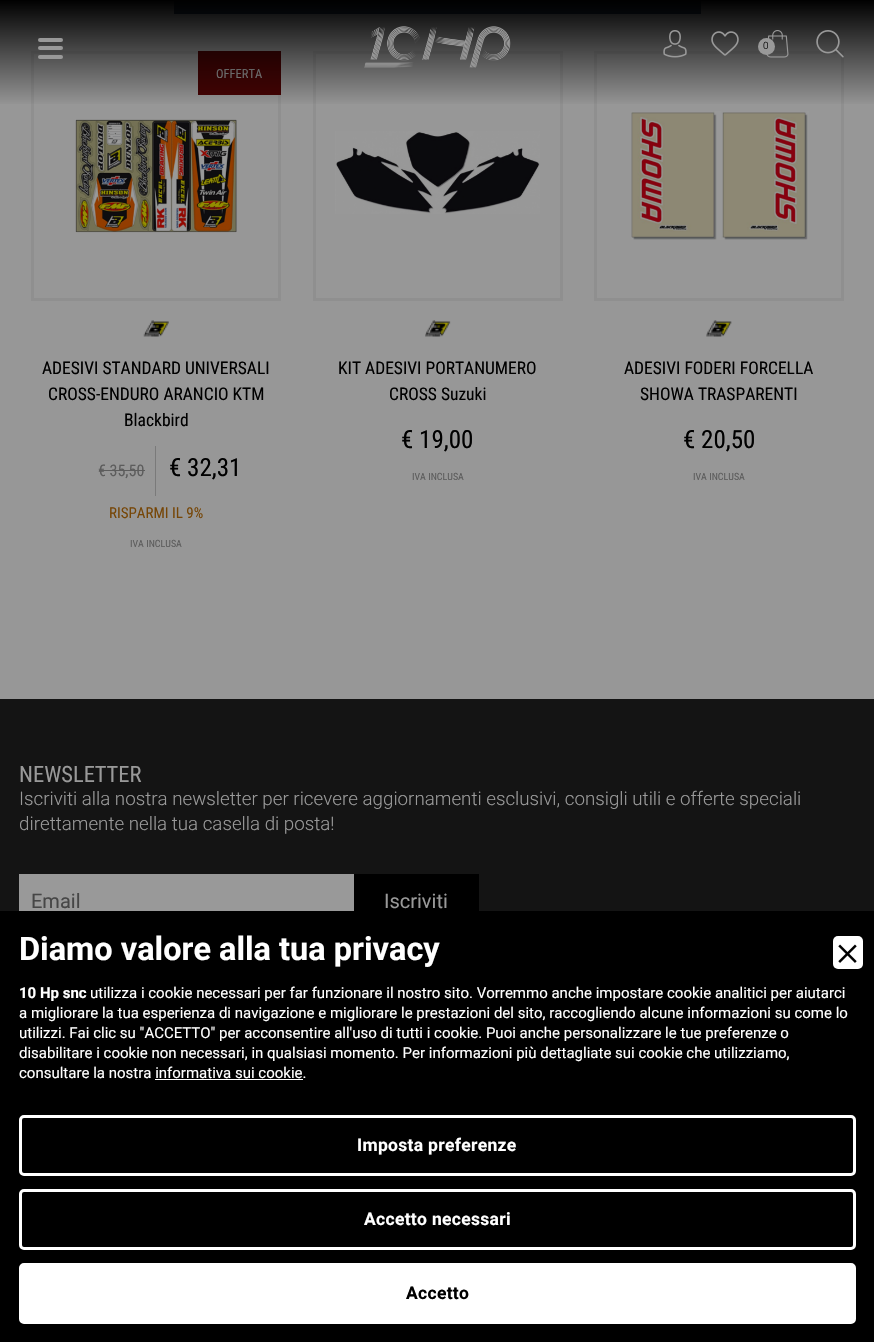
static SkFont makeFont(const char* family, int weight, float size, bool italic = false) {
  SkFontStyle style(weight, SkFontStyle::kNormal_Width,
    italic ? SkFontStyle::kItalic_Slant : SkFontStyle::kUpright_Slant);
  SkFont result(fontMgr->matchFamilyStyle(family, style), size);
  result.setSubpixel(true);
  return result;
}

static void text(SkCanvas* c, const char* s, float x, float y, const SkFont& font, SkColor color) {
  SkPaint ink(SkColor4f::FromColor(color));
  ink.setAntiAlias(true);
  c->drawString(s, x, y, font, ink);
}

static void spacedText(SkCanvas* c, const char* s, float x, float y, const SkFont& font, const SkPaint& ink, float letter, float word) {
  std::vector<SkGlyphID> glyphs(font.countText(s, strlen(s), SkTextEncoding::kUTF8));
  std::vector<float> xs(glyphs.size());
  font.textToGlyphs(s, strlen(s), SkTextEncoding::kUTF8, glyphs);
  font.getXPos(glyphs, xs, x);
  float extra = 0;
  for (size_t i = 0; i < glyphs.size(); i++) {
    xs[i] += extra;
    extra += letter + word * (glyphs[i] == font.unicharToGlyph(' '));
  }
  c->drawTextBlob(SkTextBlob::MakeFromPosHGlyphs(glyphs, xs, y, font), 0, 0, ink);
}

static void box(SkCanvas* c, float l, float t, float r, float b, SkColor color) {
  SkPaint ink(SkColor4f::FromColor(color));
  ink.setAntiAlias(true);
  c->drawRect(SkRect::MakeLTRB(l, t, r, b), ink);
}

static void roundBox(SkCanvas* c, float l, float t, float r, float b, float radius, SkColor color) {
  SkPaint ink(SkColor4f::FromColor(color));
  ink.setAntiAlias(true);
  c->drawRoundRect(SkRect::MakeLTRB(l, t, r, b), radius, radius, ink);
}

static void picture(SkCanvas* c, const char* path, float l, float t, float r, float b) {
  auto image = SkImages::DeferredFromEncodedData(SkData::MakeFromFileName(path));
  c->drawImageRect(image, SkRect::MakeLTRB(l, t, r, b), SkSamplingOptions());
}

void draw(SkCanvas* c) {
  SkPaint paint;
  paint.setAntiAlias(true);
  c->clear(0xff979797);
  box(c, 61, 1, 815, 14, 0xff949494);
  box(c, 174, 1, 701, 14, 0xff203043);
  paint.setStyle(SkPaint::kStroke_Style);
  paint.setStrokeWidth(3);
  paint.setColor(0xff8f8f8f);
  c->drawRect(SkRect::MakeLTRB(32.5f, 52.5f, 279.5f, 299.5f), paint);
  box(c, 198, 51, 281, 95, 0xff460303);
  SkFont face1 = makeFont("Roboto Condensed", 400, 12.5f);
  text(c, "OFFERTA", 216, 78, face1, 0xff999999);
  c->drawRect(SkRect::MakeLTRB(314.5f, 52.5f, 561.5f, 299.5f), paint);
  c->drawRect(SkRect::MakeLTRB(595.5f, 52.5f, 842.5f, 299.5f), paint);
  paint.setStyle(SkPaint::kFill_Style);
  {
    const SkColor colors[] = {0xff000000, 0x00000000};
    const float stops[] = {0, 1};
    const SkPoint ends[] = {{438, 0}, {438, 106}};
    paint.setShader(SkGradientShader::MakeLinear(ends, colors, stops, 2, SkTileMode::kClamp));
    paint.setAlpha(255);
  }
  c->drawRect(SkRect::MakeLTRB(0, 0, 874, 104), paint);
  roundBox(c, 38, 38, 63, 42, 2, 0xff999999);
  roundBox(c, 38, 46, 63, 50, 2, 0xff999999);
  roundBox(c, 38, 55, 63, 59, 2, 0xff999999);
  picture(c, "img_01.png", 364, 26, 511, 68);
  picture(c, "img_02.png", 663, 30, 687, 58);
  picture(c, "img_03.png", 711, 31, 739, 56);
  picture(c, "img_04.png", 766, 30, 789, 58);
  paint.setShader(nullptr);
  paint.setColor(0xff999999);
  c->drawCircle(766.5f, 46.5f, 8.5f, paint);
  SkFont face2 = makeFont("Roboto", 300, 10);
  text(c, "0", 763, 49, face2, 0xff000000);
  picture(c, "img_05.png", 816, 30, 844, 58);
  picture(c, "img_06.png", 75, 119, 237, 233);
  picture(c, "img_07.png", 143, 320, 169, 337);
  SkFont face3 = makeFont("Roboto Condensed", 400, 17.5f);
  text(c, "ADESIVI STANDARD UNIVERSALI", 42, 374, face3, 0xff000000);
  text(c, "CROSS-ENDURO ARANCIO KTM", 48, 400, face3, 0xff000000);
  text(c, "Blackbird", 124, 426, face3, 0xff000000);
  box(c, 155, 446, 156, 496, 0xff7a7a7a);
  SkFont face4 = makeFont("Roboto Condensed", 400, 16);
  text(c, "€ 35,50", 98, 476, face4, 0xff5c5c5c);
  box(c, 99, 470, 145, 471, 0xff5c5c5c);
  SkFont face5 = makeFont("Roboto Condensed", 400, 25);
  text(c, "€ 32,31", 169, 476, face5, 0xff000000);
  SkFont face6 = makeFont("Roboto Condensed", 400, 15);
  text(c, "RISPARMI IL 9%", 109, 518, face6, 0xff764607);
  SkFont face7 = makeFont("Roboto Condensed", 400, 10);
  text(c, "IVA INCLUSA", 130, 547, face7, 0xff5c5c5c);
  picture(c, "img_08.png", 335, 131, 540, 214);
  picture(c, "img_09.png", 425, 320, 451, 337);
  text(c, "KIT ADESIVI PORTANUMERO", 338, 374, face3, 0xff000000);
  text(c, "CROSS Suzuki", 389, 400, face3, 0xff000000);
  text(c, "€ 19,00", 401, 448, face5, 0xff000000);
  text(c, "IVA INCLUSA", 412, 480, face7, 0xff5c5c5c);
  picture(c, "img_10.png", 631, 111, 809, 240);
  picture(c, "img_11.png", 706, 320, 732, 337);
  text(c, "ADESIVI FODERI FORCELLA", 624, 374, face3, 0xff000000);
  text(c, "SHOWA TRASPARENTI", 640, 400, face3, 0xff000000);
  text(c, "€ 20,50", 683, 448, face5, 0xff000000);
  text(c, "IVA INCLUSA", 693, 480, face7, 0xff5c5c5c);
  box(c, 0, 699, 874, 911, 0xff141414);
  SkFont face8 = makeFont("Roboto Condensed", 400, 22.5f);
  text(c, "NEWSLETTER", 19, 782, face8, 0xff999999);
  SkFont face9 = makeFont("Roboto", 300, 18.75f);
  text(c, "Iscriviti alla nostra newsletter per ricevere aggiornamenti esclusivi, consigli utili e offerte speciali", 19, 805, face9, 0xff999999);
  text(c, "direttamente nella tua casella di posta!", 19, 830, face9, 0xff999999);
  box(c, 19, 874, 354, 911, 0xff999999);
  SkFont face10 = makeFont("Roboto", 400, 20);
  text(c, "Email", 31, 908, face10, 0xff464646);
  box(c, 354, 874, 479, 911, 0xff000000);
  text(c, "Iscriviti", 384, 908, face10, 0xff999999);
  box(c, 0, 911, 874, 1342, 0xff000000);
  SkFont face11 = makeFont("Roboto", 700, 32.5f);
  text(c, "Diamo valore alla tua privacy", 19, 960, face11, 0xffffffff);
  roundBox(c, 833, 936, 863, 969, 5, 0xffffffff);
  picture(c, "img_12.png", 838, 944, 857, 963);
  SkFont face12 = makeFont("Roboto", 700, 15);
  text(c, "10 Hp snc", 19, 998, face12, 0xffffffff);
  SkFont face13 = makeFont("Roboto", 400, 15);
  text(c, "utilizza i cookie necessari per far funzionare il nostro sito. Vorremmo anche impostare cookie analitici per aiutarci", 90, 998, face13, 0xffffffff);
  text(c, "a migliorare la tua esperienza di navigazione e migliorare le prestazioni del sito, raccogliendo alcune informazioni su come lo", 19, 1018, face13, 0xffffffff);
  text(c, "utilizzi. Fai clic su \"ACCETTO\" per acconsentire all'uso di tutti i cookie. Puoi anche personalizzare le tue preferenze o", 19, 1038, face13, 0xffffffff);
  text(c, "disabilitare i cookie non necessari, in qualsiasi momento. Per informazioni più dettagliate sui cookie che utilizziamo,", 19, 1058, face13, 0xffffffff);
  text(c, "consultare la nostra informativa sui cookie.", 19, 1078, face13, 0xffffffff);
  box(c, 155, 1079, 303, 1080, 0xffffffff);
  paint.setStyle(SkPaint::kStroke_Style);
  paint.setColor(0xffffffff);
  c->drawRoundRect(SkRect::MakeLTRB(20.5f, 1116.5f, 854.5f, 1174.5f), 3.5f, 3.5f, paint);
  SkFont face14 = makeFont("Roboto", 700, 17.5f);
  paint.setStyle(SkPaint::kFill_Style);
  spacedText(c, "Imposta preferenze", 357, 1151, face14, paint, 0.3f, 0);
  paint.setStyle(SkPaint::kStroke_Style);
  c->drawRoundRect(SkRect::MakeLTRB(20.5f, 1190.5f, 854.5f, 1248.5f), 3.5f, 3.5f, paint);
  paint.setStyle(SkPaint::kFill_Style);
  spacedText(c, "Accetto necessari", 364, 1225, face14, paint, 0.3f, 0);
  c->drawRoundRect(SkRect::MakeLTRB(20.5f, 1264.5f, 854.5f, 1322.5f), 3.5f, 3.5f, paint);
  paint.setStyle(SkPaint::kStroke_Style);
  c->drawRoundRect(SkRect::MakeLTRB(20.5f, 1264.5f, 854.5f, 1322.5f), 3.5f, 3.5f, paint);
  paint.setStyle(SkPaint::kFill_Style);
  paint.setColor(0xff000000);
  spacedText(c, "Accetto", 406, 1299, face14, paint, 0.3f, 0);
}
